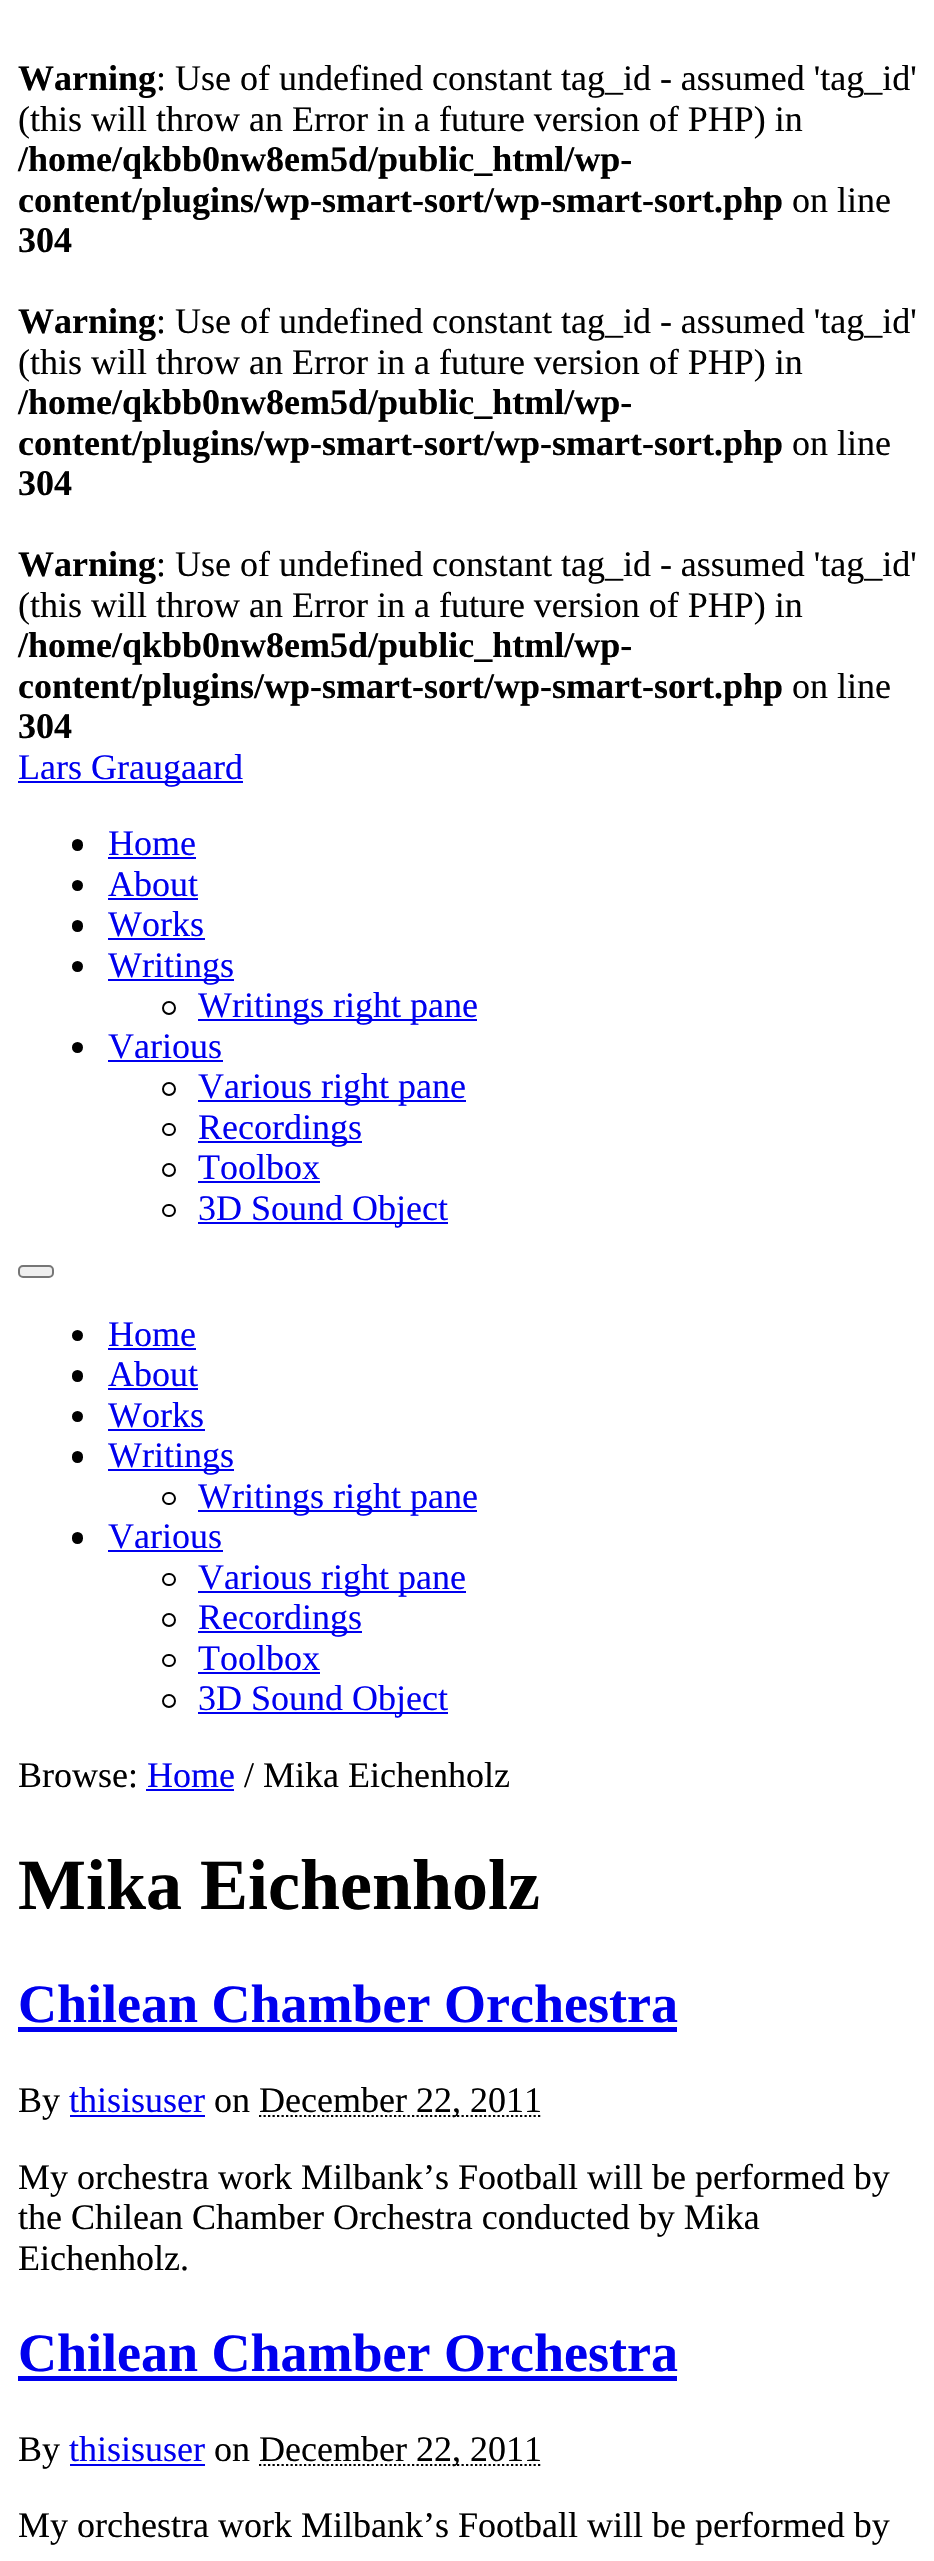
static SkFont makeFont(const char* family, int weight, float size, bool italic = false) {
  SkFontStyle style(weight, SkFontStyle::kNormal_Width,
    italic ? SkFontStyle::kItalic_Slant : SkFontStyle::kUpright_Slant);
  SkFont result(fontMgr->matchFamilyStyle(family, style), size);
  result.setSubpixel(true);
  return result;
}

static void text(SkCanvas* c, const char* s, float x, float y, const SkFont& font, SkColor color) {
  SkPaint ink(SkColor4f::FromColor(color));
  ink.setAntiAlias(true);
  c->drawString(s, x, y, font, ink);
}

static void box(SkCanvas* c, float l, float t, float r, float b, SkColor color) {
  SkPaint ink(SkColor4f::FromColor(color));
  ink.setAntiAlias(true);
  c->drawRect(SkRect::MakeLTRB(l, t, r, b), ink);
}

static void roundBox(SkCanvas* c, float l, float t, float r, float b, float radius, SkColor color) {
  SkPaint ink(SkColor4f::FromColor(color));
  ink.setAntiAlias(true);
  c->drawRoundRect(SkRect::MakeLTRB(l, t, r, b), radius, radius, ink);
}

void draw(SkCanvas* c) {
  SkPaint paint;
  paint.setAntiAlias(true);
  c->clear(0xffffffff);
  SkFont face1 = makeFont("Liberation Serif", 700, 36);
  text(c, "Warning", 18, 90, face1, 0xff000000);
  SkFont face2 = makeFont("Liberation Serif", 400, 36);
  text(c, ": Use of undefined constant tag_id - assumed 'tag_id'", 156, 90, face2, 0xff000000);
  text(c, "(this will throw an Error in a future version of PHP) in", 18, 131, face2, 0xff000000);
  text(c, "/home/qkbb0nw8em5d/public_html/wp-", 18, 171, face1, 0xff000000);
  text(c, "content/plugins/wp-smart-sort/wp-smart-sort.php", 18, 212, face1, 0xff000000);
  text(c, "on line", 792, 212, face2, 0xff000000);
  text(c, "304", 18, 252, face1, 0xff000000);
  text(c, "Warning", 18, 333, face1, 0xff000000);
  text(c, ": Use of undefined constant tag_id - assumed 'tag_id'", 156, 333, face2, 0xff000000);
  text(c, "(this will throw an Error in a future version of PHP) in", 18, 374, face2, 0xff000000);
  text(c, "/home/qkbb0nw8em5d/public_html/wp-", 18, 414, face1, 0xff000000);
  text(c, "content/plugins/wp-smart-sort/wp-smart-sort.php", 18, 455, face1, 0xff000000);
  text(c, "on line", 792, 455, face2, 0xff000000);
  text(c, "304", 18, 495, face1, 0xff000000);
  text(c, "Warning", 18, 576, face1, 0xff000000);
  text(c, ": Use of undefined constant tag_id - assumed 'tag_id'", 156, 576, face2, 0xff000000);
  text(c, "(this will throw an Error in a future version of PHP) in", 18, 617, face2, 0xff000000);
  text(c, "/home/qkbb0nw8em5d/public_html/wp-", 18, 657, face1, 0xff000000);
  text(c, "content/plugins/wp-smart-sort/wp-smart-sort.php", 18, 698, face1, 0xff000000);
  text(c, "on line", 792, 698, face2, 0xff000000);
  text(c, "304", 18, 738, face1, 0xff000000);
  box(c, 18, 781, 243, 783, 0xff0000ee);
  text(c, "Lars Graugaard", 18, 779, face2, 0xff0000ee);
  roundBox(c, 72, 839, 83, 851, 5.5f, 0xff000000);
  text(c, "Home", 108, 855, face2, 0xff0000ee);
  box(c, 108, 857, 196, 859, 0xff0000ee);
  paint.setColor(0xff000000);
  c->drawCircle(77.5f, 885.5f, 5.5f, paint);
  text(c, "About", 108, 896, face2, 0xff0000ee);
  box(c, 108, 898, 198, 900, 0xff0000ee);
  roundBox(c, 72, 920, 83, 932, 5.5f, 0xff000000);
  text(c, "Works", 108, 936, face2, 0xff0000ee);
  box(c, 108, 938, 205, 940, 0xff0000ee);
  c->drawCircle(77.5f, 966.5f, 5.5f, paint);
  box(c, 108, 979, 234, 981, 0xff0000ee);
  text(c, "Writings", 108, 977, face2, 0xff0000ee);
  paint.setStyle(SkPaint::kStroke_Style);
  paint.setStrokeWidth(2);
  c->drawCircle(169, 1008, 6, paint);
  box(c, 198, 1019, 477, 1021, 0xff0000ee);
  text(c, "Writings right pane", 198, 1017, face2, 0xff0000ee);
  paint.setStyle(SkPaint::kFill_Style);
  c->drawCircle(77.5f, 1047.5f, 5.5f, paint);
  text(c, "Various", 108, 1058, face2, 0xff0000ee);
  box(c, 108, 1060, 223, 1062, 0xff0000ee);
  paint.setStyle(SkPaint::kStroke_Style);
  c->drawCircle(169, 1089, 6, paint);
  box(c, 198, 1100, 466, 1102, 0xff0000ee);
  text(c, "Various right pane", 198, 1098, face2, 0xff0000ee);
  c->drawRoundRect(SkRect::MakeLTRB(163, 1124, 175, 1135), 5.5f, 5.5f, paint);
  box(c, 198, 1141, 362, 1143, 0xff0000ee);
  text(c, "Recordings", 198, 1139, face2, 0xff0000ee);
  c->drawCircle(169, 1170, 6, paint);
  text(c, "Toolbox", 198, 1179, face2, 0xff0000ee);
  box(c, 198, 1181, 320, 1183, 0xff0000ee);
  c->drawRoundRect(SkRect::MakeLTRB(163, 1205, 175, 1216), 5.5f, 5.5f, paint);
  box(c, 198, 1222, 448, 1224, 0xff0000ee);
  text(c, "3D Sound Object", 198, 1220, face2, 0xff0000ee);
  paint.setStyle(SkPaint::kFill_Style);
  paint.setColor(0xffefefef);
  c->drawRoundRect(SkRect::MakeLTRB(19, 1266, 53, 1277), 4, 4, paint);
  paint.setStyle(SkPaint::kStroke_Style);
  paint.setColor(0xff767676);
  c->drawRoundRect(SkRect::MakeLTRB(19, 1266, 53, 1277), 4, 4, paint);
  paint.setStyle(SkPaint::kFill_Style);
  paint.setColor(0xff000000);
  c->drawCircle(77.5f, 1335.5f, 5.5f, paint);
  text(c, "Home", 108, 1346, face2, 0xff0000ee);
  box(c, 108, 1348, 196, 1350, 0xff0000ee);
  roundBox(c, 72, 1370, 83, 1382, 5.5f, 0xff000000);
  text(c, "About", 108, 1386, face2, 0xff0000ee);
  box(c, 108, 1388, 198, 1390, 0xff0000ee);
  c->drawCircle(77.5f, 1416.5f, 5.5f, paint);
  text(c, "Works", 108, 1427, face2, 0xff0000ee);
  box(c, 108, 1429, 205, 1431, 0xff0000ee);
  roundBox(c, 72, 1451, 83, 1463, 5.5f, 0xff000000);
  box(c, 108, 1469, 234, 1471, 0xff0000ee);
  text(c, "Writings", 108, 1467, face2, 0xff0000ee);
  paint.setStyle(SkPaint::kStroke_Style);
  c->drawRoundRect(SkRect::MakeLTRB(163, 1493, 175, 1504), 5.5f, 5.5f, paint);
  box(c, 198, 1510, 477, 1512, 0xff0000ee);
  text(c, "Writings right pane", 198, 1508, face2, 0xff0000ee);
  roundBox(c, 72, 1532, 83, 1544, 5.5f, 0xff000000);
  text(c, "Various", 108, 1548, face2, 0xff0000ee);
  box(c, 108, 1550, 223, 1552, 0xff0000ee);
  c->drawRoundRect(SkRect::MakeLTRB(163, 1574, 175, 1585), 5.5f, 5.5f, paint);
  box(c, 198, 1591, 466, 1593, 0xff0000ee);
  text(c, "Various right pane", 198, 1589, face2, 0xff0000ee);
  c->drawCircle(169, 1620, 6, paint);
  box(c, 198, 1631, 362, 1633, 0xff0000ee);
  text(c, "Recordings", 198, 1629, face2, 0xff0000ee);
  c->drawRoundRect(SkRect::MakeLTRB(163, 1655, 175, 1666), 5.5f, 5.5f, paint);
  text(c, "Toolbox", 198, 1670, face2, 0xff0000ee);
  box(c, 198, 1672, 320, 1674, 0xff0000ee);
  c->drawCircle(169, 1701, 6, paint);
  box(c, 198, 1712, 448, 1714, 0xff0000ee);
  text(c, "3D Sound Object", 198, 1710, face2, 0xff0000ee);
  text(c, "Browse:", 18, 1787, face2, 0xff000000);
  text(c, "Home", 147, 1787, face2, 0xff0000ee);
  box(c, 146, 1789, 234, 1791, 0xff0000ee);
  text(c, "/ Mika Eichenholz", 244, 1787, face2, 0xff000000);
  SkFont face3 = makeFont("Liberation Serif", 700, 72);
  text(c, "Mika Eichenholz", 18, 1909, face3, 0xff000000);
  SkFont face4 = makeFont("Liberation Serif", 700, 54);
  text(c, "Chilean Chamber Orchestra", 18, 2022, face4, 0xff0000ee);
  box(c, 18, 2027, 677, 2032, 0xff0000ee);
  text(c, "By", 18, 2112, face2, 0xff000000);
  text(c, "thisisuser", 69, 2112, face2, 0xff0000ee);
  box(c, 70, 2115, 205, 2117, 0xff0000ee);
  text(c, "on", 214, 2112, face2, 0xff000000);
  paint.setStrokeWidth(2.2f);
  paint.setPathEffect(SkDashPathEffect::Make({{2.25f, 2.25f}}, 0));
  c->drawPath(SkPathBuilder().moveTo(259, 2116).lineTo(542, 2116).detach(), paint);
  paint.setPathEffect(nullptr);
  text(c, "December 22, 2011", 259, 2112, face2, 0xff000000);
  text(c, "My orchestra work Milbank’s Football will be performed by", 18, 2189, face2, 0xff000000);
  text(c, "the Chilean Chamber Orchestra conducted by Mika", 18, 2229, face2, 0xff000000);
  text(c, "Eichenholz.", 18, 2270, face2, 0xff000000);
  text(c, "Chilean Chamber Orchestra", 18, 2371, face4, 0xff0000ee);
  box(c, 18, 2376, 677, 2381, 0xff0000ee);
  text(c, "By", 18, 2461, face2, 0xff000000);
  text(c, "thisisuser", 69, 2461, face2, 0xff0000ee);
  box(c, 70, 2464, 205, 2466, 0xff0000ee);
  text(c, "on", 214, 2461, face2, 0xff000000);
  paint.setPathEffect(SkDashPathEffect::Make({{2.25f, 2.25f}}, 0));
  c->drawPath(SkPathBuilder().moveTo(259, 2465).lineTo(542, 2465).detach(), paint);
  paint.setPathEffect(nullptr);
  text(c, "December 22, 2011", 259, 2461, face2, 0xff000000);
  text(c, "My orchestra work Milbank’s Football will be performed by", 18, 2537, face2, 0xff000000);
}
